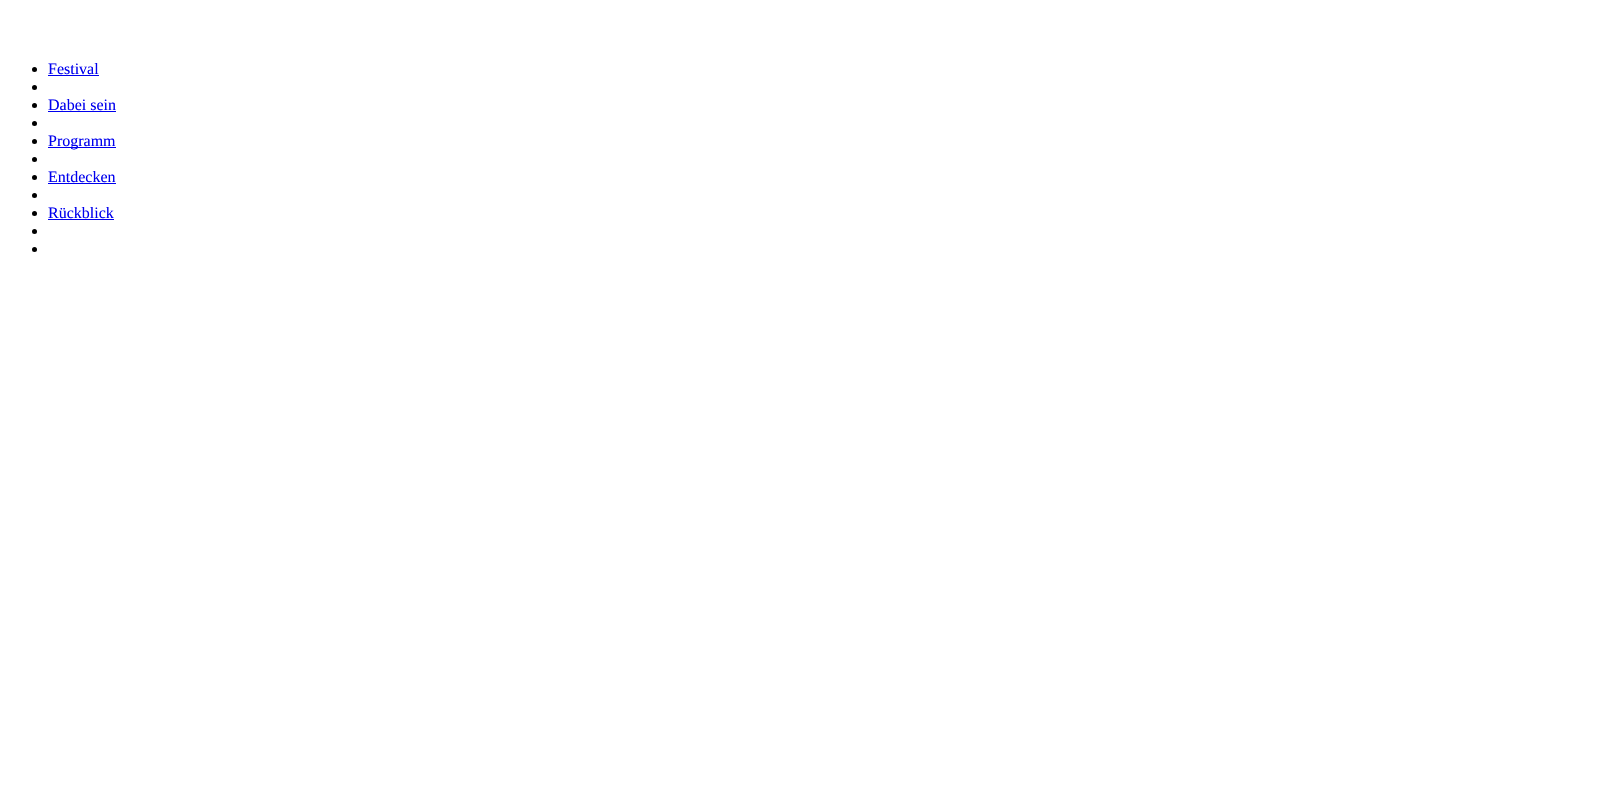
static SkFont makeFont(const char* family, int weight, float size, bool italic = false) {
  SkFontStyle style(weight, SkFontStyle::kNormal_Width,
    italic ? SkFontStyle::kItalic_Slant : SkFontStyle::kUpright_Slant);
  SkFont result(fontMgr->matchFamilyStyle(family, style), size);
  result.setSubpixel(true);
  return result;
}

static void text(SkCanvas* c, const char* s, float x, float y, const SkFont& font, SkColor color) {
  SkPaint ink(SkColor4f::FromColor(color));
  ink.setAntiAlias(true);
  c->drawString(s, x, y, font, ink);
}

static void box(SkCanvas* c, float l, float t, float r, float b, SkColor color) {
  SkPaint ink(SkColor4f::FromColor(color));
  ink.setAntiAlias(true);
  c->drawRect(SkRect::MakeLTRB(l, t, r, b), ink);
}

void draw(SkCanvas* c) {
  SkPaint paint;
  paint.setAntiAlias(true);
  c->clear(0xffffffff);
  paint.setColor(0xff000000);
  c->drawCircle(34.5f, 69.5f, 2.5f, paint);
  SkFont face1 = makeFont("Liberation Serif", 400, 16);
  text(c, "Festival", 48, 74, face1, 0xff0000ee);
  box(c, 48, 75, 99, 76, 0xff0000ee);
  c->drawCircle(34.5f, 87.5f, 2.5f, paint);
  c->drawCircle(34.5f, 105.5f, 2.5f, paint);
  text(c, "Dabei sein", 48, 110, face1, 0xff0000ee);
  box(c, 48, 111, 116, 112, 0xff0000ee);
  c->drawCircle(34.5f, 123.5f, 2.5f, paint);
  c->drawCircle(34.5f, 141.5f, 2.5f, paint);
  box(c, 48, 147, 116, 148, 0xff0000ee);
  text(c, "Programm", 48, 146, face1, 0xff0000ee);
  c->drawCircle(34.5f, 159.5f, 2.5f, paint);
  c->drawCircle(34.5f, 177.5f, 2.5f, paint);
  text(c, "Entdecken", 48, 182, face1, 0xff0000ee);
  box(c, 48, 183, 116, 184, 0xff0000ee);
  c->drawCircle(34.5f, 195.5f, 2.5f, paint);
  c->drawCircle(34.5f, 213.5f, 2.5f, paint);
  text(c, "Rückblick", 48, 218, face1, 0xff0000ee);
  box(c, 48, 219, 114, 220, 0xff0000ee);
  c->drawCircle(34.5f, 231.5f, 2.5f, paint);
  c->drawCircle(34.5f, 249.5f, 2.5f, paint);
}
